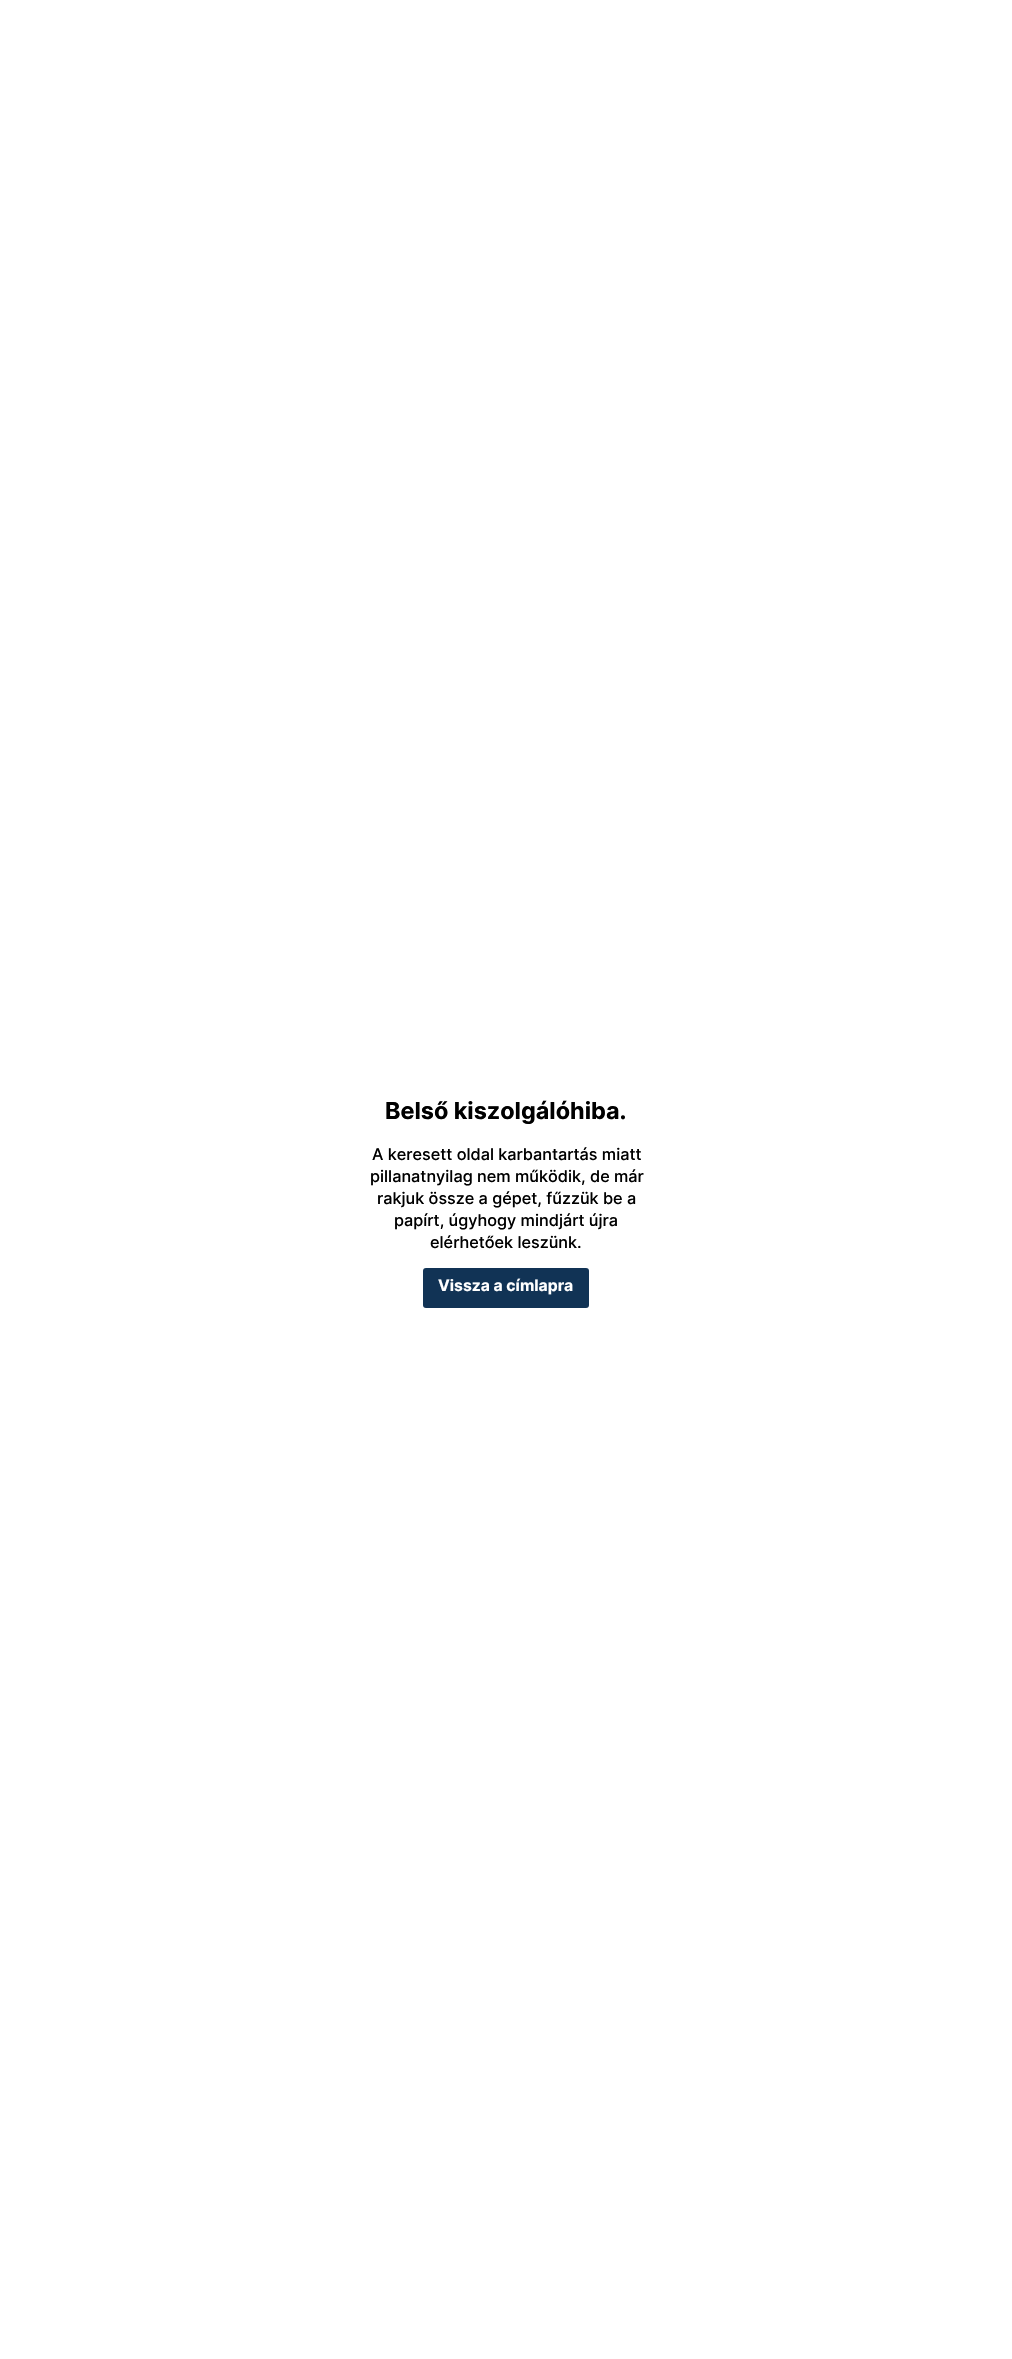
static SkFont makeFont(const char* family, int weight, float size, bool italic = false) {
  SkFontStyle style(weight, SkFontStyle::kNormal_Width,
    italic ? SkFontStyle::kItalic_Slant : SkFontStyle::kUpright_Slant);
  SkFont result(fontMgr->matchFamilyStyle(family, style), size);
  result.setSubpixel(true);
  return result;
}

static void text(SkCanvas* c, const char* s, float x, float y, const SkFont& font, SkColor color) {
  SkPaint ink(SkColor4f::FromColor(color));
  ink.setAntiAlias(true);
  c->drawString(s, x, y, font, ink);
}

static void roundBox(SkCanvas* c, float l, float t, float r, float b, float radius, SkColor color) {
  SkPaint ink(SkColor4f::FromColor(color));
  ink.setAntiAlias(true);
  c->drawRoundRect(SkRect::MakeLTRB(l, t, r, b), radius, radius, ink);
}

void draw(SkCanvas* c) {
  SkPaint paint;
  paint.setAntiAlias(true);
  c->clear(0xffffffff);
  SkFont face1 = makeFont("Inter", 700, 23.4f);
  text(c, "Belső kiszolgálóhiba.", 385, 1119, face1, 0xff000000);
  SkFont face2 = makeFont("Inter", 500, 16.25f);
  text(c, "A keresett oldal karbantartás miatt", 372, 1160, face2, 0xff000000);
  text(c, "pillanatnyilag nem működik, de már", 370, 1182, face2, 0xff000000);
  text(c, "rakjuk össze a gépet, fűzzük be a", 377, 1204, face2, 0xff000000);
  text(c, "papírt, úgyhogy mindjárt újra", 394, 1226, face2, 0xff000000);
  text(c, "elérhetőek leszünk.", 430, 1248, face2, 0xff000000);
  roundBox(c, 423, 1268, 589, 1308, 3, 0xff113355);
  SkFont face3 = makeFont("Inter", 700, 15.75f);
  text(c, "Vissza a címlapra", 438, 1291, face3, 0xffffffff);
}
